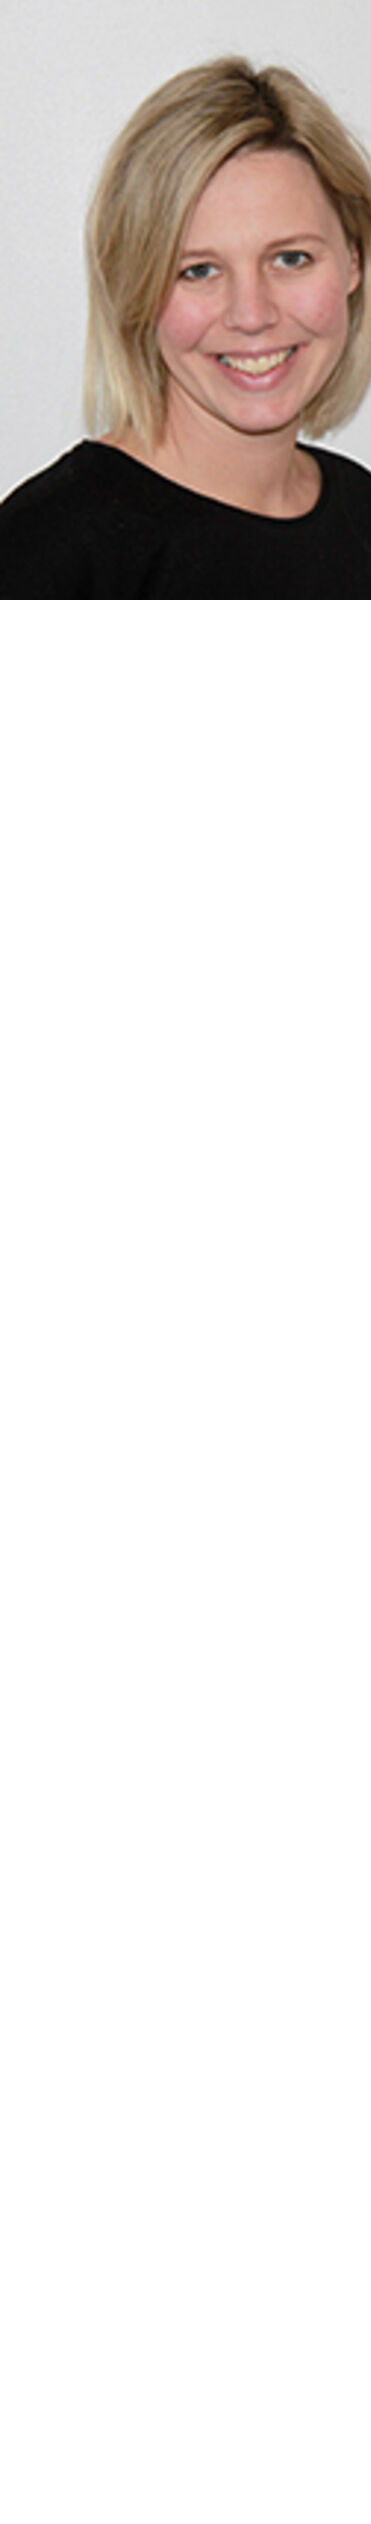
static void picture(SkCanvas* c, const char* path, float l, float t, float r, float b) {
  auto image = SkImages::DeferredFromEncodedData(SkData::MakeFromFileName(path));
  c->drawImageRect(image, SkRect::MakeLTRB(l, t, r, b), SkSamplingOptions());
}

void draw(SkCanvas* c) {
  SkPaint paint;
  paint.setAntiAlias(true);
  c->clear(0xffffffff);
  picture(c, "img_01.png", 0, 0, 371, 600);
}
